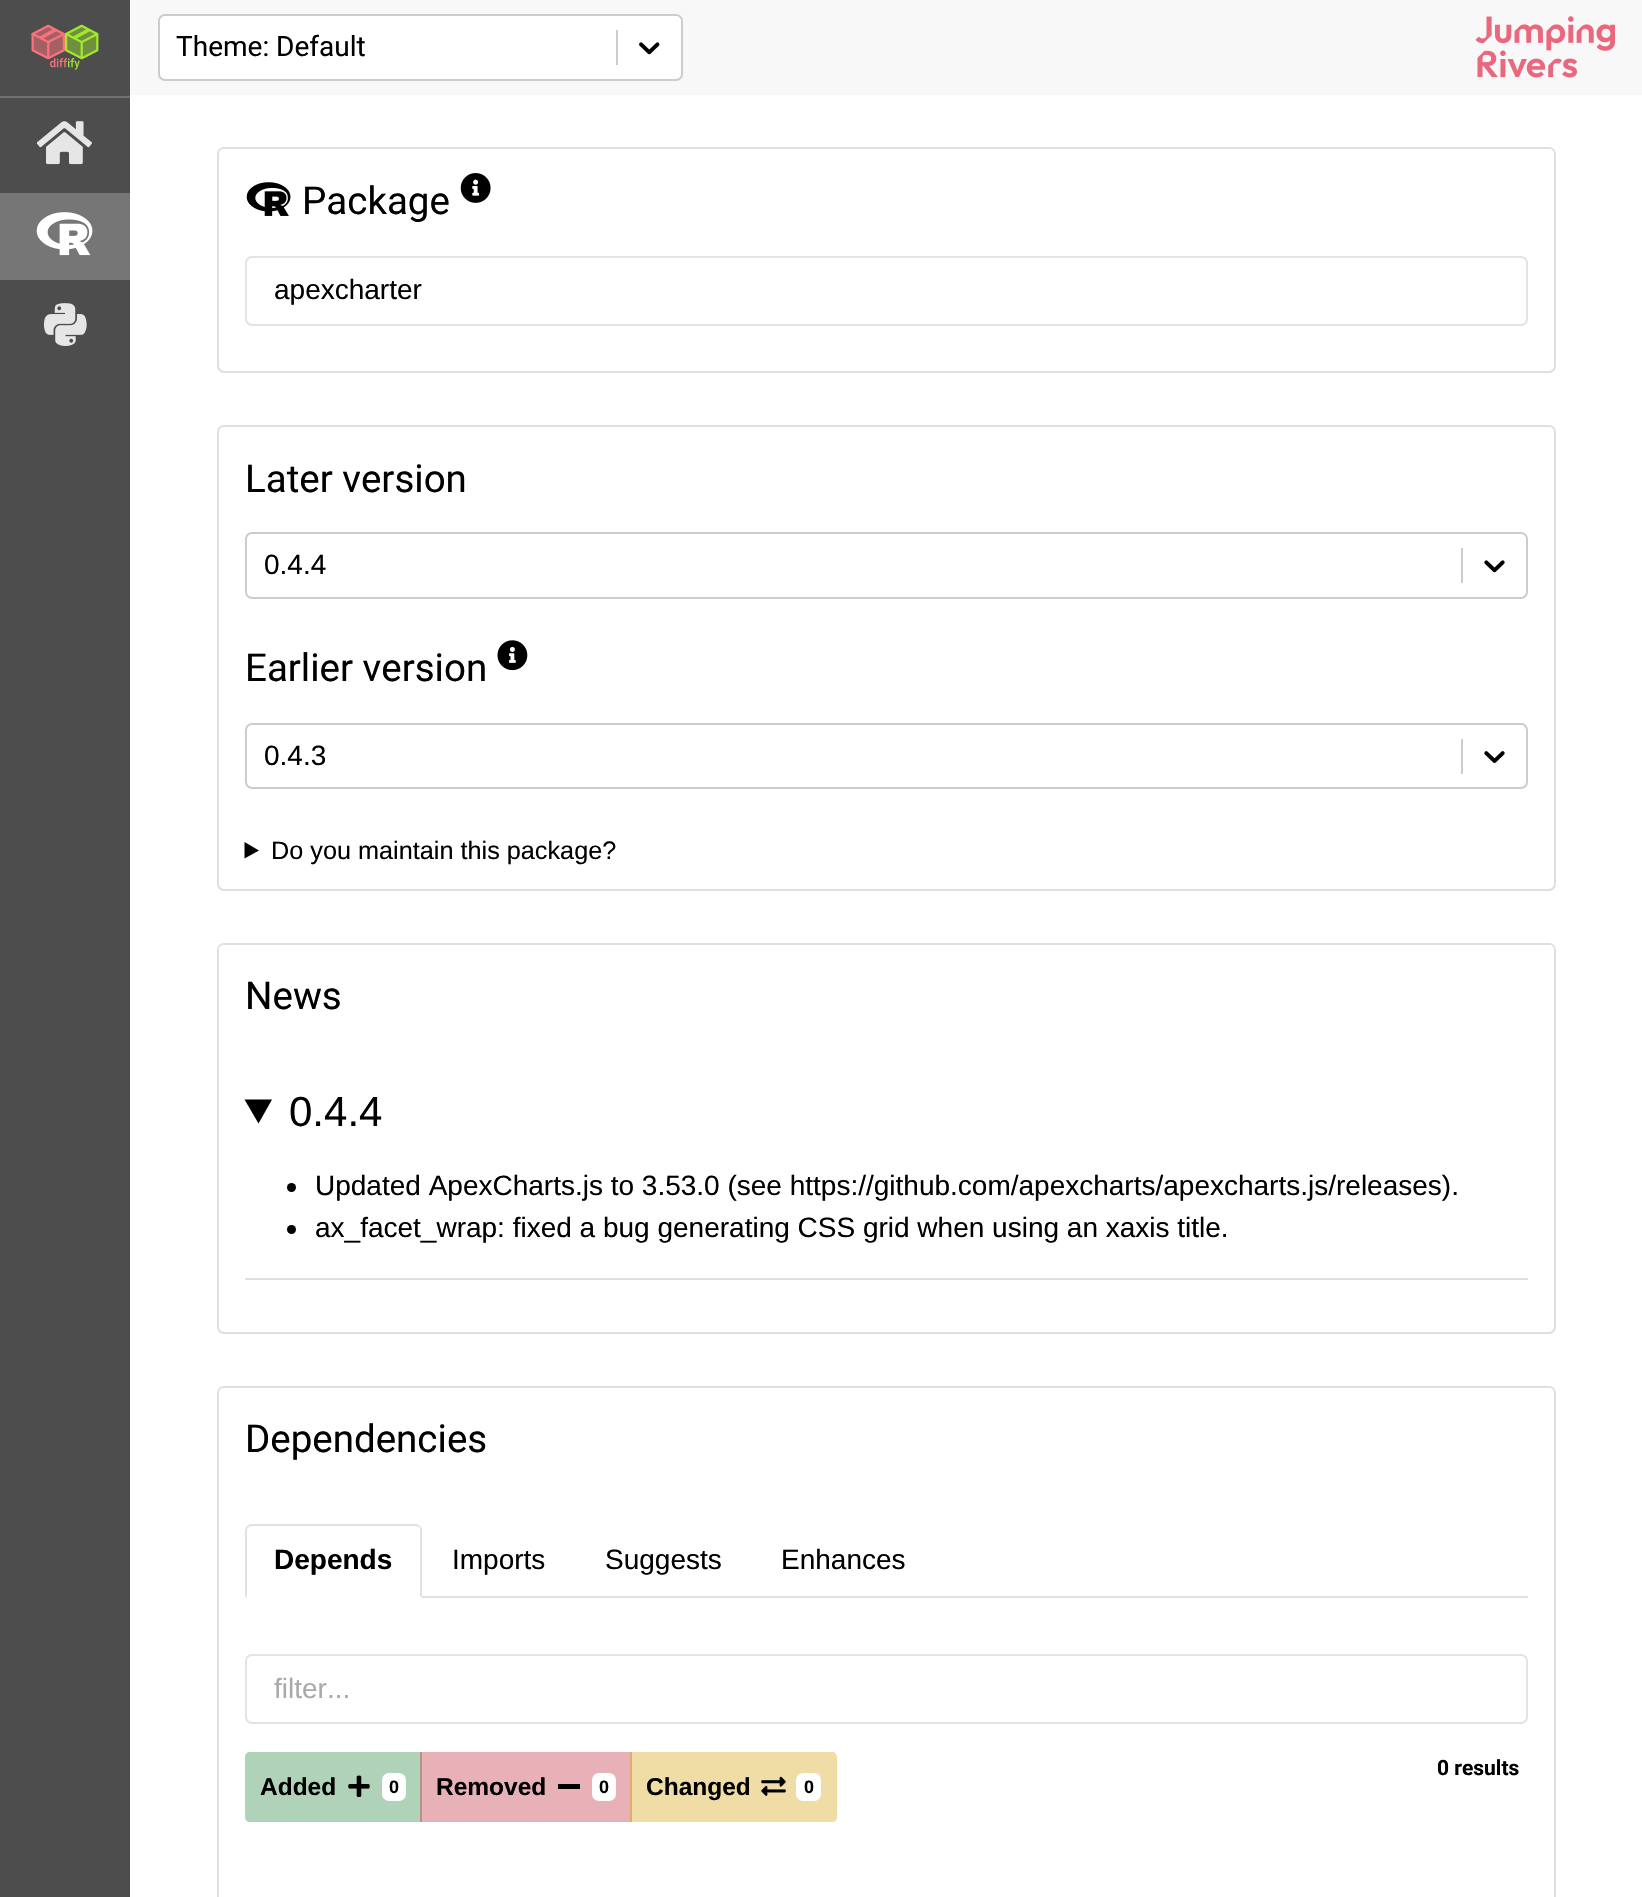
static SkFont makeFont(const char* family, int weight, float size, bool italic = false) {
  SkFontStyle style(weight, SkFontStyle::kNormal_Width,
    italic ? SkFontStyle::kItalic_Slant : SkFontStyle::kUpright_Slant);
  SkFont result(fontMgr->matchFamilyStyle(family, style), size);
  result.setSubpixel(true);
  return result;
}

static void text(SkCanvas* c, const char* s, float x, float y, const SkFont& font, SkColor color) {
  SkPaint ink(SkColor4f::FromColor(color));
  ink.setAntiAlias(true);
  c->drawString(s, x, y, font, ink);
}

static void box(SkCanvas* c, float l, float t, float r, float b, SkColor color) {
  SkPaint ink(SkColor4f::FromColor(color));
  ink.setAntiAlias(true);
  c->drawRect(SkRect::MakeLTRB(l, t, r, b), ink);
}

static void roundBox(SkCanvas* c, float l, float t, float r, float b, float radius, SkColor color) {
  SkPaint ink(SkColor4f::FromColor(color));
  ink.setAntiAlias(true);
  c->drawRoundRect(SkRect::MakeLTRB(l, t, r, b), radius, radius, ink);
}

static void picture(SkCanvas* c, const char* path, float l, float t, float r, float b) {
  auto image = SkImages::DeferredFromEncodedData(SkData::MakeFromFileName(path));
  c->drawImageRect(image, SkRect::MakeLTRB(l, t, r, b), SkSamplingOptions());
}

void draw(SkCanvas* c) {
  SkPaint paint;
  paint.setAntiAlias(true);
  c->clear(0xffffffff);
  box(c, 422, 1752, 632, 1822, 0xffe8b1b7);
  box(c, 0, 0, 130, 1897, 0xff4d4d4d);
  box(c, 0, 96, 130, 98, 0xff717171);
  picture(c, "img_01.png", 31, 24, 99, 70);
  picture(c, "img_02.png", 36, 121, 92, 165);
  box(c, 0, 193, 130, 280, 0xff767676);
  picture(c, "img_03.png", 36, 212, 93, 256);
  picture(c, "img_04.png", 43, 303, 87, 346);
  box(c, 130, 0, 1642, 95, 0xfff8f8f8);
  paint.setColor(0xffffffff);
  c->drawRoundRect(SkRect::MakeLTRB(159, 15, 682, 80), 6, 6, paint);
  paint.setStyle(SkPaint::kStroke_Style);
  paint.setStrokeWidth(2);
  paint.setColor(0xffcccccc);
  c->drawRoundRect(SkRect::MakeLTRB(159, 15, 682, 80), 6, 6, paint);
  SkFont face1 = makeFont("Roboto", 400, 28);
  text(c, "Theme: Default", 176, 56, face1, 0xff000000);
  box(c, 616, 30, 618, 65, 0xffcccccc);
  picture(c, "img_05.png", 639, 42, 660, 55);
  picture(c, "img_06.png", 1475, 16, 1615, 78);
  paint.setColor(0xffdfdfdf);
  c->drawRoundRect(SkRect::MakeLTRB(218, 148, 1555, 372), 6, 6, paint);
  paint.setStyle(SkPaint::kFill_Style);
  paint.setColor(0xffffffff);
  c->drawPath(SkPathBuilder().moveTo(224, 149).lineTo(1549, 149).cubicTo(1552, 149, 1554, 151, 1554, 154).lineTo(1554, 229).lineTo(219, 229).lineTo(219, 154).cubicTo(219, 151, 221, 149, 224, 149).close().detach(), paint);
  picture(c, "img_07.png", 246, 182, 291, 216);
  SkFont face2 = makeFont("Roboto", 400, 38.5f);
  text(c, "Package", 302, 214, face2, 0xff000000);
  picture(c, "img_08.png", 460, 173, 491, 203);
  paint.setStyle(SkPaint::kStroke_Style);
  paint.setColor(0xffe3e3e3);
  c->drawRoundRect(SkRect::MakeLTRB(246, 257, 1527, 325), 6, 6, paint);
  SkFont face3 = makeFont("Liberation Sans", 400, 28);
  text(c, "apexcharter", 274, 299, face3, 0xff000000);
  paint.setColor(0xffdfdfdf);
  c->drawRoundRect(SkRect::MakeLTRB(218, 426, 1555, 890), 6, 6, paint);
  paint.setStyle(SkPaint::kFill_Style);
  paint.setColor(0xffffffff);
  c->drawPath(SkPathBuilder().moveTo(224, 427).lineTo(1549, 427).cubicTo(1552, 427, 1554, 429, 1554, 432).lineTo(1554, 506).lineTo(219, 506).lineTo(219, 432).cubicTo(219, 429, 221, 427, 224, 427).close().detach(), paint);
  text(c, "Later version", 245, 492, face2, 0xff000000);
  paint.setStyle(SkPaint::kStroke_Style);
  paint.setColor(0xffcccccc);
  c->drawRoundRect(SkRect::MakeLTRB(246, 533, 1527, 598), 6, 6, paint);
  text(c, "0.4.4", 264, 574, face3, 0xff000000);
  box(c, 1461, 548, 1463, 583, 0xffcccccc);
  picture(c, "img_09.png", 1484, 560, 1505, 573);
  text(c, "Earlier version", 245, 681, face2, 0xff000000);
  picture(c, "img_10.png", 497, 640, 528, 671);
  c->drawRoundRect(SkRect::MakeLTRB(246, 724, 1527, 788), 6, 6, paint);
  text(c, "0.4.3", 264, 765, face3, 0xff000000);
  box(c, 1461, 739, 1463, 774, 0xffcccccc);
  picture(c, "img_11.png", 1484, 751, 1505, 763);
  paint.setStyle(SkPaint::kFill_Style);
  paint.setColor(0xff000000);
  c->drawPath(SkPathBuilder().moveTo(244.5f, 842).lineTo(259, 850.5f).lineTo(244.5f, 858.5f).close().detach(), paint);
  SkFont face4 = makeFont("Liberation Sans", 400, 25.25f);
  text(c, "Do you maintain this package?", 271, 859, face4, 0xff000000);
  paint.setStyle(SkPaint::kStroke_Style);
  paint.setColor(0xffdfdfdf);
  c->drawRoundRect(SkRect::MakeLTRB(218, 944, 1555, 1333), 6, 6, paint);
  paint.setStyle(SkPaint::kFill_Style);
  paint.setColor(0xffffffff);
  c->drawPath(SkPathBuilder().moveTo(224, 945).lineTo(1549, 945).cubicTo(1552, 945, 1554, 947, 1554, 950).lineTo(1554, 1055).lineTo(219, 1055).lineTo(219, 950).cubicTo(219, 947, 221, 945, 224, 945).close().detach(), paint);
  text(c, "News", 245, 1009, face2, 0xff000000);
  box(c, 245, 1278, 1528, 1280, 0xffdfdfdf);
  paint.setColor(0xff000000);
  c->drawPath(SkPathBuilder().moveTo(244.5f, 1099.5f).lineTo(272, 1099.5f).lineTo(258.5f, 1123.5f).close().detach(), paint);
  SkFont face5 = makeFont("Liberation Sans", 400, 42);
  text(c, "0.4.4", 289, 1126, face5, 0xff000000);
  c->drawCircle(291.5f, 1187.5f, 4.5f, paint);
  text(c, "Updated ApexCharts.js to 3.53.0 (see https://github.com/apexcharts/apexcharts.js/releases).", 315, 1195, face3, 0xff000000);
  c->drawCircle(291.5f, 1229.5f, 4.5f, paint);
  text(c, "ax_facet_wrap: fixed a bug generating CSS grid when using an xaxis title.", 315, 1237, face3, 0xff000000);
  paint.setStyle(SkPaint::kStroke_Style);
  paint.setColor(0xffdfdfdf);
  c->drawRoundRect(SkRect::MakeLTRB(218, 1387, 1555, 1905), 6, 6, paint);
  paint.setStyle(SkPaint::kFill_Style);
  paint.setColor(0xffffffff);
  c->drawPath(SkPathBuilder().moveTo(224, 1388).lineTo(1549, 1388).cubicTo(1552, 1388, 1554, 1390, 1554, 1393).lineTo(1554, 1498).lineTo(219, 1498).lineTo(219, 1393).cubicTo(219, 1390, 221, 1388, 224, 1388).close().detach(), paint);
  text(c, "Dependencies", 245, 1452, face2, 0xff000000);
  box(c, 422, 1596, 1528, 1598, 0xffdee2e6);
  paint.setColor(0xffdee2e6);
  c->drawPath(SkPathBuilder().moveTo(252, 1526).cubicTo(250, 1526, 249, 1527, 248, 1528).lineTo(247, 1526).lineTo(250, 1524).lineTo(417, 1524).lineTo(420, 1526).lineTo(419, 1527).cubicTo(418, 1526, 416, 1526, 415, 1526).close().detach(), paint);
  c->drawPath(SkPathBuilder().moveTo(420, 1526).lineTo(422, 1529).lineTo(422, 1598).lineTo(420, 1596).lineTo(420, 1531).cubicTo(420, 1530, 420, 1528, 419, 1527).close().detach(), paint);
  paint.setColor(0xffffffff);
  c->drawPath(SkPathBuilder().moveTo(422, 1598).lineTo(420, 1596).lineTo(247, 1596).lineTo(245, 1598).close().detach(), paint);
  paint.setColor(0xffdee2e6);
  c->drawPath(SkPathBuilder().moveTo(245, 1598).lineTo(247, 1596).lineTo(247, 1531).cubicTo(247, 1530, 247, 1528, 248, 1528).lineTo(247, 1526).cubicTo(246, 1527, 245, 1529, 245, 1531).close().detach(), paint);
  SkFont face6 = makeFont("Liberation Sans", 700, 28);
  text(c, "Depends", 274, 1569, face6, 0xff000000);
  text(c, "Imports", 452, 1569, face3, 0xff000000);
  text(c, "Suggests", 605, 1569, face3, 0xff000000);
  text(c, "Enhances", 781, 1569, face3, 0xff000000);
  paint.setStyle(SkPaint::kStroke_Style);
  paint.setColor(0xffe3e3e3);
  c->drawRoundRect(SkRect::MakeLTRB(246, 1655, 1527, 1723), 6, 6, paint);
  text(c, "filter...", 274, 1698, face3, 0xffaaaaaa);
  SkFont face7 = makeFont("Roboto", 700, 21);
  text(c, "0 results", 1437, 1775, face7, 0xff000000);
  paint.setStyle(SkPaint::kFill_Style);
  paint.setColor(0xffb0d2b8);
  c->drawPath(SkPathBuilder().moveTo(250, 1752).lineTo(422, 1752).lineTo(422, 1822).lineTo(250, 1822).cubicTo(247, 1822, 245, 1820, 245, 1817).lineTo(245, 1757).cubicTo(245, 1754, 247, 1752, 250, 1752).close().detach(), paint);
  box(c, 420, 1752, 422, 1822, 0xffb59488);
  SkFont face8 = makeFont("Liberation Sans", 700, 24.5f);
  text(c, "Added", 260, 1795, face8, 0xff000000);
  picture(c, "img_12.png", 348, 1775, 370, 1797);
  roundBox(c, 382, 1773, 406, 1801, 7, 0xffffffff);
  SkFont face9 = makeFont("Liberation Sans", 700, 18);
  text(c, "0", 389, 1793, face9, 0xff000000);
  text(c, "Removed", 436, 1795, face8, 0xff000000);
  box(c, 558, 1784, 580, 1789, 0xff000000);
  roundBox(c, 592, 1773, 616, 1801, 7, 0xffffffff);
  text(c, "0", 599, 1793, face9, 0xff000000);
  paint.setColor(0x59d39e00);
  c->drawPath(SkPathBuilder().moveTo(630, 1752).lineTo(832, 1752).cubicTo(835, 1752, 837, 1754, 837, 1757).lineTo(837, 1817).cubicTo(837, 1820, 835, 1822, 832, 1822).lineTo(630, 1822).close().detach(), paint);
  text(c, "Changed", 646, 1795, face8, 0xff000000);
  picture(c, "img_13.png", 761, 1776, 786, 1796);
  roundBox(c, 796, 1773, 821, 1801, 7, 0xffffffff);
  text(c, "0", 804, 1793, face9, 0xff000000);
}
